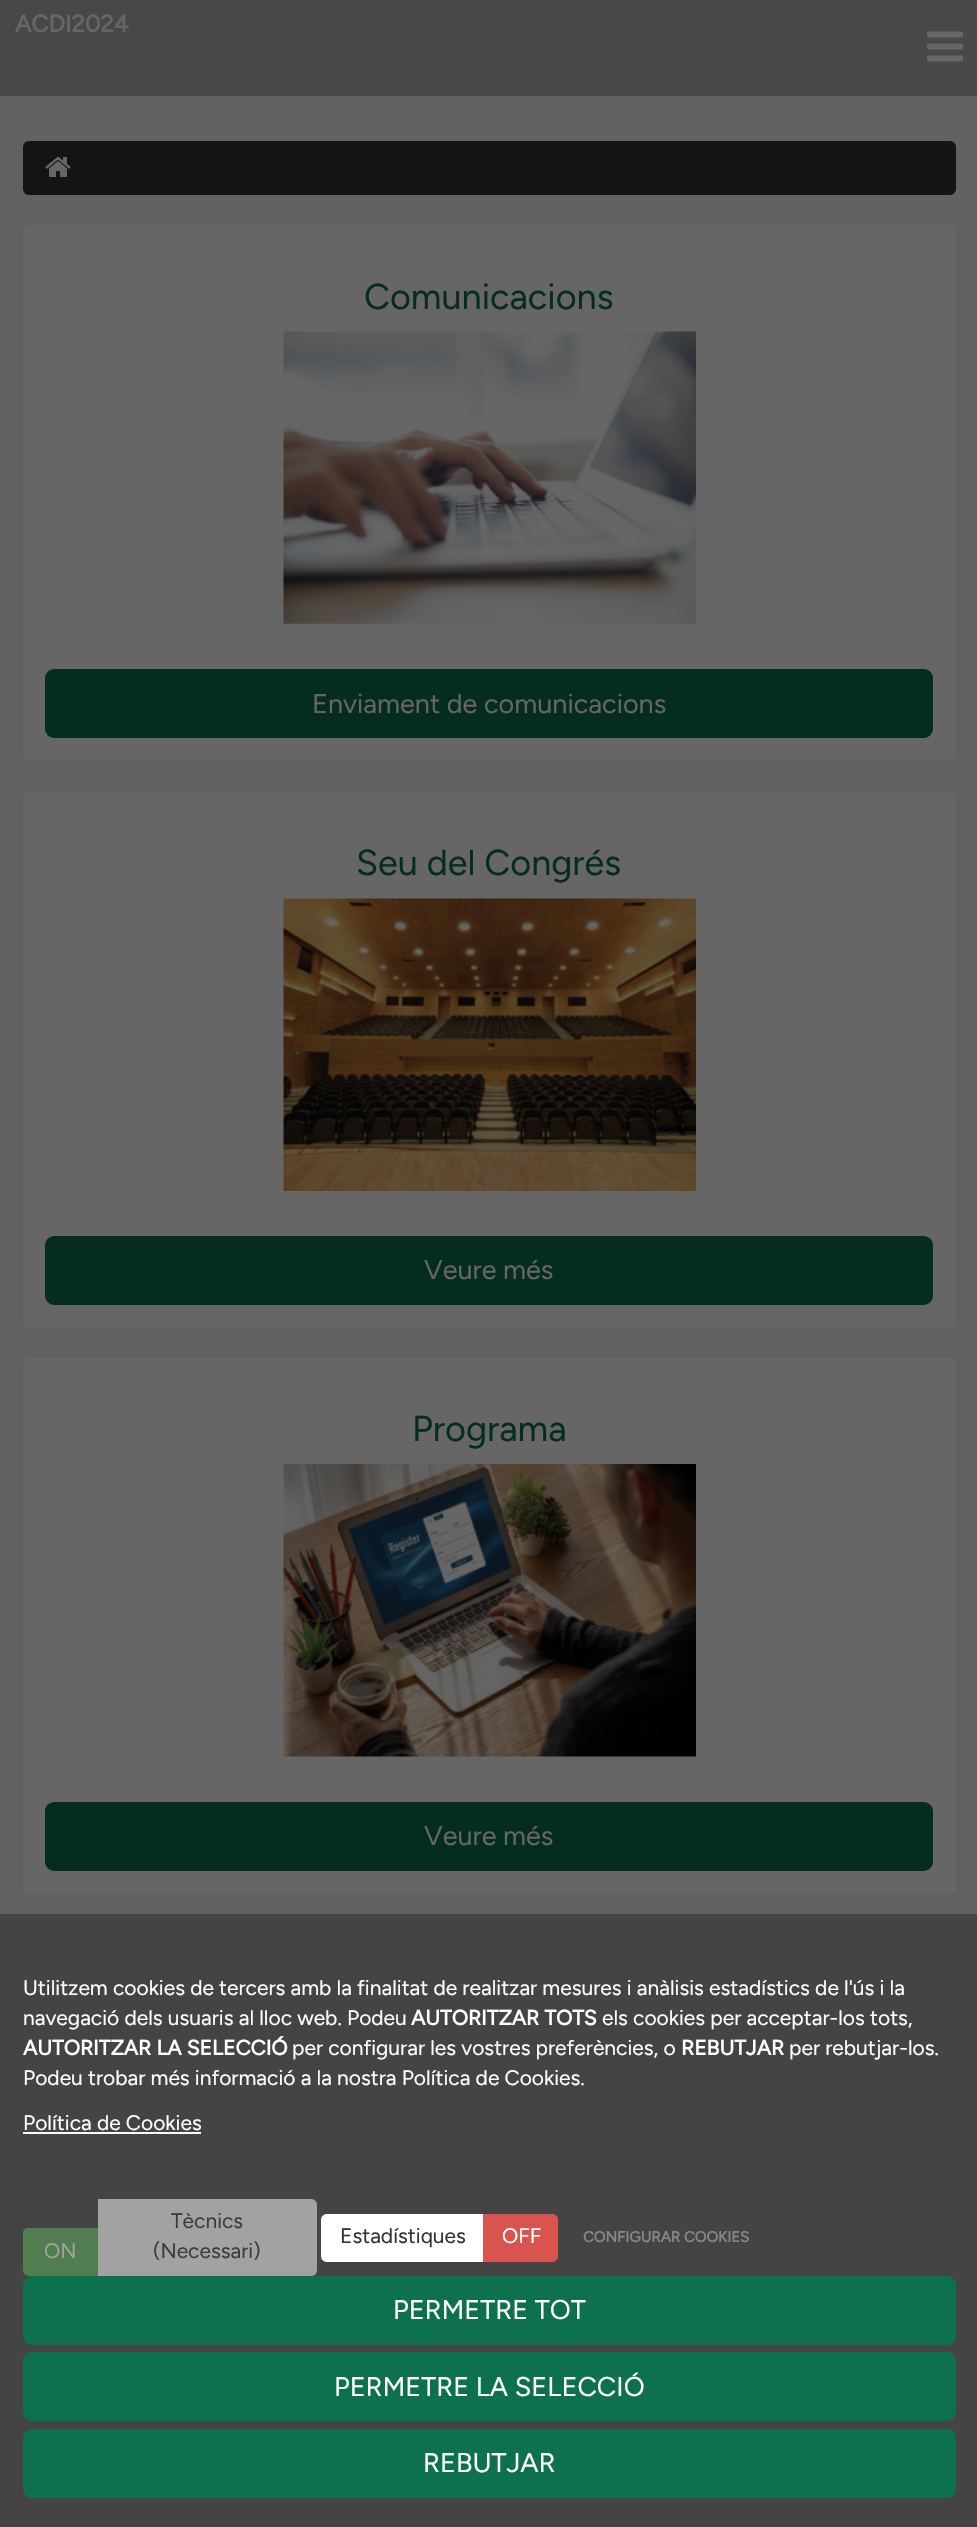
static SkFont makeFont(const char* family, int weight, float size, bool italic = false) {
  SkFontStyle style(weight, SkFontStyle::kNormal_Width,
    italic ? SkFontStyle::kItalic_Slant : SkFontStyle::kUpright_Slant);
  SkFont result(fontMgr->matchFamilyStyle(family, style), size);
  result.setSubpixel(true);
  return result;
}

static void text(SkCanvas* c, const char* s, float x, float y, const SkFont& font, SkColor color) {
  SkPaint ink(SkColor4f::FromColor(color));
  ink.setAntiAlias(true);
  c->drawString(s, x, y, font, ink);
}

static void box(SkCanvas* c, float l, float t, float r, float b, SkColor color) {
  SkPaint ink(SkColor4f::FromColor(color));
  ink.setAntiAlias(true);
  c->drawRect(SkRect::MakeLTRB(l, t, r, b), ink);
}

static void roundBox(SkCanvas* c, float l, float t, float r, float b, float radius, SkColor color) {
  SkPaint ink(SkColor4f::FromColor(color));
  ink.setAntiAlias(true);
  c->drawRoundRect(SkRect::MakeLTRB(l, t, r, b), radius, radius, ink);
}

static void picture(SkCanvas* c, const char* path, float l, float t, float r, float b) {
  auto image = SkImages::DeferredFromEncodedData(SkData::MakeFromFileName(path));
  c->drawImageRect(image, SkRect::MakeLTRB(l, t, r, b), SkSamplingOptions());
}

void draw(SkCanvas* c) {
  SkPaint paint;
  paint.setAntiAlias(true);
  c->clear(0xff606161);
  box(c, 0, 0, 977, 96, 0xff484848);
  SkFont face1 = makeFont("Figtree", 700, 24);
  text(c, "ACDI2024", 15, 32, face1, 0xff666666);
  picture(c, "img_01.png", 927, 31, 963, 62);
  roundBox(c, 23, 141, 956, 195, 6, 0xff141414);
  picture(c, "img_02.png", 45, 157, 71, 177);
  roundBox(c, 23, 225, 956, 761, 6, 0xff666666);
  SkFont face2 = makeFont("Figtree", 300, 36);
  text(c, "Comunicacions", 364, 309, face2, 0xff052d1f);
  picture(c, "img_03.png", 283, 331, 696, 624);
  paint.setColor(0xff052d1f);
  c->drawRoundRect(SkRect::MakeLTRB(46, 670, 932, 737), 8, 8, paint);
  paint.setStyle(SkPaint::kStroke_Style);
  paint.setStrokeWidth(2);
  c->drawRoundRect(SkRect::MakeLTRB(46, 670, 932, 737), 8, 8, paint);
  SkFont face3 = makeFont("Figtree", 300, 27);
  text(c, "Enviament de comunicacions", 312, 713, face3, 0xff666666);
  roundBox(c, 23, 791, 956, 1328, 6, 0xff666666);
  text(c, "Seu del Congrés", 356, 875, face2, 0xff052d1f);
  picture(c, "img_04.png", 283, 898, 696, 1191);
  paint.setStyle(SkPaint::kFill_Style);
  c->drawRoundRect(SkRect::MakeLTRB(46, 1237, 932, 1304), 8, 8, paint);
  paint.setStyle(SkPaint::kStroke_Style);
  c->drawRoundRect(SkRect::MakeLTRB(46, 1237, 932, 1304), 8, 8, paint);
  text(c, "Veure més", 424, 1279, face3, 0xff666666);
  roundBox(c, 23, 1358, 956, 1893, 6, 0xff666666);
  text(c, "Programa", 412, 1441, face2, 0xff052d1f);
  picture(c, "img_05.png", 283, 1464, 696, 1757);
  paint.setStyle(SkPaint::kFill_Style);
  c->drawRoundRect(SkRect::MakeLTRB(46, 1803, 932, 1870), 8, 8, paint);
  paint.setStyle(SkPaint::kStroke_Style);
  c->drawRoundRect(SkRect::MakeLTRB(46, 1803, 932, 1870), 8, 8, paint);
  text(c, "Veure més", 424, 1845, face3, 0xff666666);
  box(c, 0, 1914, 977, 2527, 0xff444444);
  SkFont face4 = makeFont("Figtree", 300, 21);
  text(c, "Utilitzem cookies de tercers amb la finalitat de realitzar mesures i anàlisis estadístics de l'ús i la", 23, 1995, face4, 0xffffffff);
  text(c, "navegació dels usuaris al lloc web. Podeu", 23, 2025, face4, 0xffffffff);
  SkFont face5 = makeFont("Figtree", 700, 21);
  text(c, "AUTORITZAR TOTS", 411, 2025, face5, 0xffffffff);
  text(c, "els cookies per acceptar-los tots,", 602, 2025, face4, 0xffffffff);
  text(c, "AUTORITZAR LA SELECCIÓ", 23, 2055, face5, 0xffffffff);
  text(c, "per configurar les vostres preferències, o", 292, 2055, face4, 0xffffffff);
  text(c, "REBUTJAR", 681, 2055, face5, 0xffffffff);
  text(c, "per rebutjar-los.", 789, 2055, face4, 0xffffffff);
  text(c, "Podeu trobar més informació a la nostra Política de Cookies.", 23, 2085, face4, 0xffffffff);
  text(c, "Política de Cookies", 23, 2130, face4, 0xffffffff);
  box(c, 23, 2132, 201, 2134, 0xffffffff);
  paint.setStyle(SkPaint::kFill_Style);
  paint.setColor(0xff507e50);
  c->drawPath(SkPathBuilder().moveTo(28, 2228).lineTo(98, 2228).lineTo(98, 2276).lineTo(29, 2276).cubicTo(25.5f, 2276, 23, 2273.5f, 23, 2270).lineTo(23, 2233).cubicTo(23, 2230, 25, 2228, 28, 2228).close().detach(), paint);
  text(c, "ON", 44, 2258, face4, 0xffa2a2a2);
  c->save();
  c->clipPath(SkPathBuilder().moveTo(29, 2199).lineTo(311, 2199).cubicTo(314.5f, 2199, 317, 2201.5f, 317, 2205).lineTo(317, 2270).cubicTo(317, 2273.5f, 314.5f, 2276, 311, 2276).lineTo(29, 2276).cubicTo(25.5f, 2276, 23, 2273.5f, 23, 2270).lineTo(23, 2205).cubicTo(23, 2201.5f, 25.5f, 2199, 29, 2199).close().detach(), true);
  paint.setColor(0xffa2a2a2);
  c->drawPath(SkPathBuilder().moveTo(98, 2198).lineTo(312, 2198).cubicTo(315, 2198, 317, 2200, 317, 2203).lineTo(317, 2271).cubicTo(317, 2274, 315, 2276, 312, 2276).lineTo(98, 2276).close().detach(), paint);
  c->restore();
  text(c, "Tècnics", 171, 2228, face4, 0xff3c3c3c);
  text(c, "(Necessari)", 153, 2258, face4, 0xff3c3c3c);
  paint.setColor(0xffffffff);
  c->drawPath(SkPathBuilder().moveTo(327, 2214).lineTo(483, 2214).lineTo(483, 2262).lineTo(327, 2262).cubicTo(323.5f, 2262, 321, 2259.5f, 321, 2256).lineTo(321, 2220).cubicTo(321, 2216.5f, 323.5f, 2214, 327, 2214).close().detach(), paint);
  text(c, "Estadístiques", 340, 2243, face4, 0xff333333);
  paint.setColor(0xffd9534f);
  c->drawPath(SkPathBuilder().moveTo(483, 2214).lineTo(552, 2214).cubicTo(555.5f, 2214, 558, 2216.5f, 558, 2220).lineTo(558, 2256).cubicTo(558, 2259.5f, 555.5f, 2262, 552, 2262).lineTo(483, 2262).close().detach(), paint);
  text(c, "OFF", 502, 2243, face4, 0xffffffff);
  SkFont face6 = makeFont("Figtree", 700, 15);
  text(c, "CONFIGURAR COOKIES", 583, 2242, face6, 0xff878787);
  paint.setColor(0xff0d714d);
  c->drawRoundRect(SkRect::MakeLTRB(24, 2277, 955, 2344), 8, 8, paint);
  paint.setStyle(SkPaint::kStroke_Style);
  c->drawRoundRect(SkRect::MakeLTRB(24, 2277, 955, 2344), 8, 8, paint);
  text(c, "PERMETRE TOT", 393, 2319, face3, 0xffffffff);
  paint.setStyle(SkPaint::kFill_Style);
  c->drawRoundRect(SkRect::MakeLTRB(24, 2353, 955, 2420), 8, 8, paint);
  paint.setStyle(SkPaint::kStroke_Style);
  c->drawRoundRect(SkRect::MakeLTRB(24, 2353, 955, 2420), 8, 8, paint);
  text(c, "PERMETRE LA SELECCIÓ", 334, 2396, face3, 0xffffffff);
  paint.setStyle(SkPaint::kFill_Style);
  c->drawRoundRect(SkRect::MakeLTRB(24, 2430, 955, 2497), 8, 8, paint);
  paint.setStyle(SkPaint::kStroke_Style);
  c->drawRoundRect(SkRect::MakeLTRB(24, 2430, 955, 2497), 8, 8, paint);
  text(c, "REBUTJAR", 423, 2472, face3, 0xffffffff);
}
